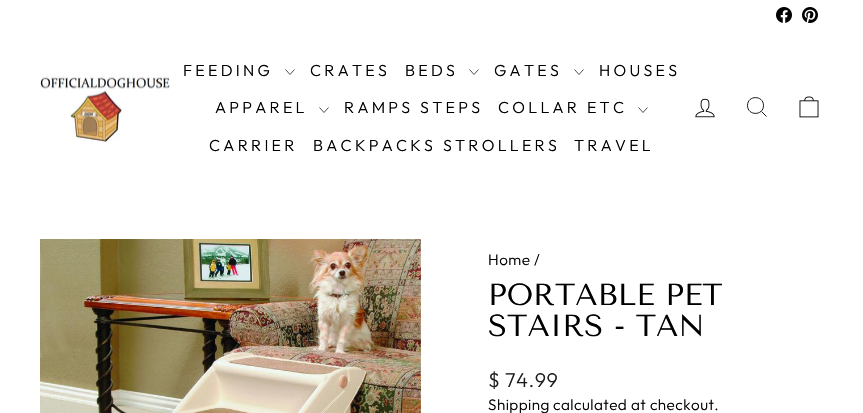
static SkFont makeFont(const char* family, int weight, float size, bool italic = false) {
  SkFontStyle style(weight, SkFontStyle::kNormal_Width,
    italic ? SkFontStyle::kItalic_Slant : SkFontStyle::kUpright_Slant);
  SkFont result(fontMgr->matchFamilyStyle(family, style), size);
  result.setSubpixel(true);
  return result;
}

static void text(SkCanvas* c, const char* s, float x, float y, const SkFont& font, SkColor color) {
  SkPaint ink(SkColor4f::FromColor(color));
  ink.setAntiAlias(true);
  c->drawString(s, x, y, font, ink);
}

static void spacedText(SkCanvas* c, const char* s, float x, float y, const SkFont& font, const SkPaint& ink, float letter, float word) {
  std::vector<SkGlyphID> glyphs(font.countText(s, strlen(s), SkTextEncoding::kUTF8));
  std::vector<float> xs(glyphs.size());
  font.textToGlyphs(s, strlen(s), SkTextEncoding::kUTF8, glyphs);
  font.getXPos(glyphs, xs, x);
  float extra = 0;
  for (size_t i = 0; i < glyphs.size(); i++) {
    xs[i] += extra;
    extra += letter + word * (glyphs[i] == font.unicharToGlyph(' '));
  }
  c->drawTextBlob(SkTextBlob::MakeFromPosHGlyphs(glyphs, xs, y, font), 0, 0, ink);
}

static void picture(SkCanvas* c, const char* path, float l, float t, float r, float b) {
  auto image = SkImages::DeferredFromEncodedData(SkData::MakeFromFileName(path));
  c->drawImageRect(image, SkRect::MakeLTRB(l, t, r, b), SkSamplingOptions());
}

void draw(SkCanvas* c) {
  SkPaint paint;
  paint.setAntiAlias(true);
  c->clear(0xffffffff);
  picture(c, "img_01.png", 776, 7, 792, 23);
  picture(c, "img_02.png", 802, 7, 818, 23);
  picture(c, "img_03.png", 40, 72, 170, 143);
  SkFont face1 = makeFont("Outfit", 300, 16);
  paint.setColor(0xff000000);
  spacedText(c, "FEEDING", 183, 76, face1, paint, 3.25f, 0);
  paint.setStyle(SkPaint::kStroke_Style);
  paint.setStrokeWidth(0.7f);
  c->drawPath(SkPathBuilder().moveTo(285.5f, 69.5f).lineTo(290, 74.5f).lineTo(294.5f, 69.5f).detach(), paint);
  paint.setStyle(SkPaint::kFill_Style);
  spacedText(c, "CRATES", 310, 76, face1, paint, 3.25f, 0);
  spacedText(c, "BEDS", 405, 76, face1, paint, 3.25f, 0);
  paint.setStyle(SkPaint::kStroke_Style);
  c->drawPath(SkPathBuilder().moveTo(469.5f, 69.5f).lineTo(474, 74.5f).lineTo(478.5f, 69.5f).detach(), paint);
  paint.setStyle(SkPaint::kFill_Style);
  spacedText(c, "GATES", 494, 76, face1, paint, 3.25f, 0);
  paint.setStyle(SkPaint::kStroke_Style);
  c->drawPath(SkPathBuilder().moveTo(574.5f, 69.5f).lineTo(579, 74.5f).lineTo(583.5f, 69.5f).detach(), paint);
  paint.setStyle(SkPaint::kFill_Style);
  spacedText(c, "HOUSES", 599, 76, face1, paint, 3.25f, 0);
  spacedText(c, "APPAREL", 215, 113, face1, paint, 3.25f, 0);
  paint.setStyle(SkPaint::kStroke_Style);
  c->drawPath(SkPathBuilder().moveTo(319.5f, 107.5f).lineTo(324, 112.5f).lineTo(328.5f, 107.5f).detach(), paint);
  paint.setStyle(SkPaint::kFill_Style);
  spacedText(c, "RAMPS STEPS", 344, 113, face1, paint, 3.25f, 0);
  spacedText(c, "COLLAR ETC", 498, 113, face1, paint, 3.25f, 0);
  paint.setStyle(SkPaint::kStroke_Style);
  c->drawPath(SkPathBuilder().moveTo(638.5f, 107.5f).lineTo(643, 112.5f).lineTo(647.5f, 107.5f).detach(), paint);
  paint.setStyle(SkPaint::kFill_Style);
  spacedText(c, "CARRIER", 209, 151, face1, paint, 3.25f, 0);
  spacedText(c, "BACKPACKS STROLLERS", 313, 151, face1, paint, 3.25f, 0);
  spacedText(c, "TRAVEL", 574, 151, face1, paint, 3.25f, 0);
  picture(c, "img_04.png", 695, 98, 715, 118);
  paint.setStyle(SkPaint::kStroke_Style);
  paint.setStrokeWidth(0.9f);
  c->drawPath(SkPathBuilder().moveTo(763.5f, 105.5f).cubicTo(763.5f, 116, 747.5f, 116, 747.5f, 105.5f).cubicTo(747.5f, 95, 763.5f, 95, 763.5f, 105.5f).close().moveTo(766.5f, 116.5f).lineTo(761.5f, 111.5f).detach(), paint);
  picture(c, "img_05.png", 799, 96, 819, 118);
  picture(c, "img_06.png", 40, 239, 421, 413);
  SkFont face2 = makeFont("Outfit", 300, 15.25f);
  paint.setStyle(SkPaint::kFill_Style);
  spacedText(c, "Home /", 488, 265, face2, paint, 0.45f, 0);
  SkFont face3 = makeFont("Tenor Sans", 400, 30.5f);
  text(c, "PORTABLE PET", 488, 305, face3, 0xff000000);
  text(c, "STAIRS - TAN", 488, 336, face3, 0xff000000);
  SkFont face4 = makeFont("Outfit", 300, 20);
  paint.setColor(0xff1c1d1d);
  spacedText(c, "$ 74.99", 488, 387, face4, paint, 0.45f, 0);
  paint.setColor(0xff000000);
  spacedText(c, "Shipping", 488, 410, face2, paint, 0.45f, 0);
  spacedText(c, "calculated at checkout.", 553, 410, face2, paint, 0.45f, 0);
}
